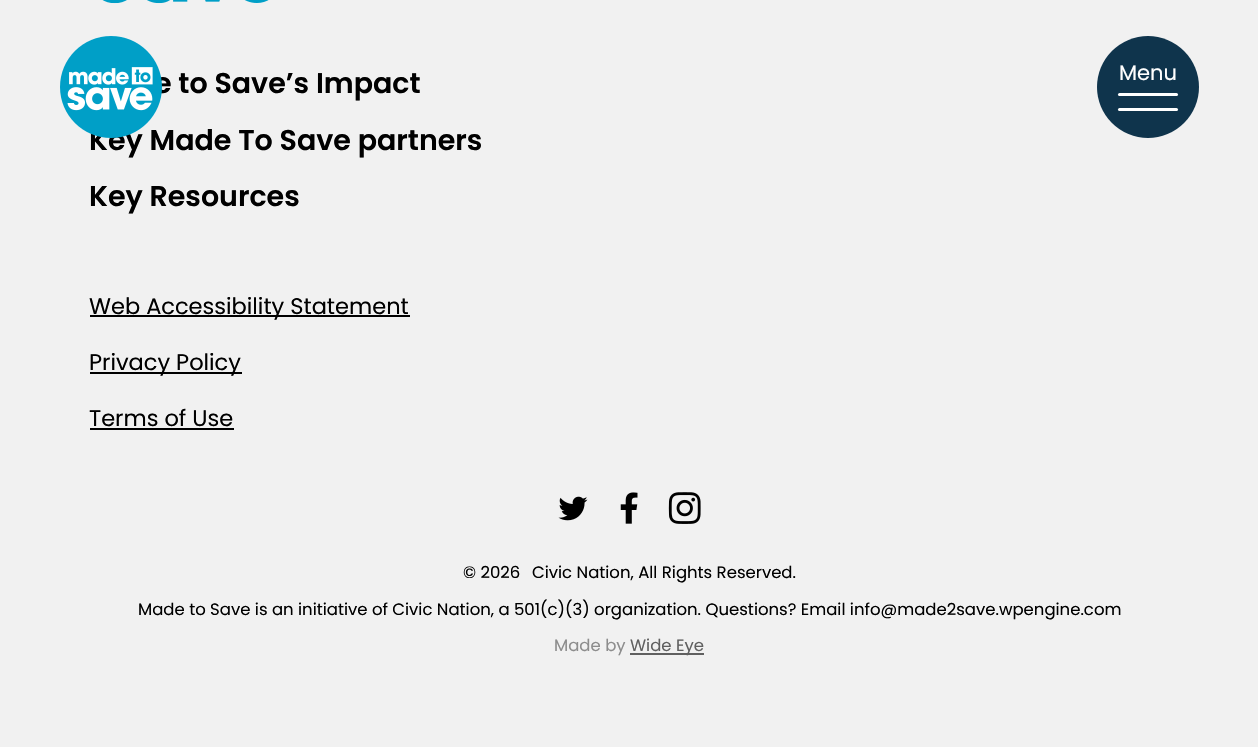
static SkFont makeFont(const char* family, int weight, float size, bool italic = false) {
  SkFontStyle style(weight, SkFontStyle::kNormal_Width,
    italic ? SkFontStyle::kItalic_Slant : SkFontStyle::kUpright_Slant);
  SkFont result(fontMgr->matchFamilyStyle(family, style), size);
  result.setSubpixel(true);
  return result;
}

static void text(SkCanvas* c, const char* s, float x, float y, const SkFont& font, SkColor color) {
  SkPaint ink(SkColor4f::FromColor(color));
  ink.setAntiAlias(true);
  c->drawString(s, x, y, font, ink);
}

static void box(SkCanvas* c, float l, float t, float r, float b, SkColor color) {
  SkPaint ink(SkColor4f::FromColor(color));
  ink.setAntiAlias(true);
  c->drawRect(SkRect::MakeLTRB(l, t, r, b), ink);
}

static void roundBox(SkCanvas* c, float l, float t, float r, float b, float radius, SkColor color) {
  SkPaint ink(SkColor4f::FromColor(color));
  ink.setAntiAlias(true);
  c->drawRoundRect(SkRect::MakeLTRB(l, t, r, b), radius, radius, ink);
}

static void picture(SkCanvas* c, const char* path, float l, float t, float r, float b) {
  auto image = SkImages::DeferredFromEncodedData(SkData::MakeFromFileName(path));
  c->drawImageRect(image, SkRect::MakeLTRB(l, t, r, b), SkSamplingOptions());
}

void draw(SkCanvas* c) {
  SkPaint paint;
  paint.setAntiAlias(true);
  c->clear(0xfff1f1f1);
  picture(c, "img_01.png", 102, 0, 269, 4);
  SkFont face1 = makeFont("Poppins", 600, 28.5f);
  text(c, "e to Save’s Impact", 154, 93, face1, 0xff000000);
  text(c, "Key Made To Save partners", 89, 150, face1, 0xff000000);
  text(c, "Key Resources", 89, 206, face1, 0xff000000);
  box(c, 90, 315, 410, 317, 0xff000000);
  SkFont face2 = makeFont("Poppins", 400, 22.5f);
  text(c, "Web Accessibility Statement", 89, 314, face2, 0xff000000);
  box(c, 90, 372, 242, 374, 0xff000000);
  text(c, "Privacy Policy", 89, 370, face2, 0xff000000);
  text(c, "Terms of Use", 89, 426, face2, 0xff000000);
  box(c, 90, 428, 234, 430, 0xff000000);
  picture(c, "img_02.png", 558, 496, 588, 521);
  picture(c, "img_03.png", 620, 492, 638, 524);
  picture(c, "img_04.png", 668, 492, 701, 524);
  SkFont face3 = makeFont("Poppins", 400, 16.5f);
  text(c, "© 2026", 463, 578, face3, 0xff000000);
  text(c, "Civic Nation, All Rights Reserved.", 532, 578, face3, 0xff000000);
  text(c, "Made to Save is an initiative of Civic Nation, a 501(c)(3) organization. Questions? Email info@made2save.wpengine.com", 138, 615, face3, 0xff000000);
  text(c, "Made by", 554, 651, face3, 0xff8d8d8d);
  box(c, 630, 653, 704, 655, 0xff606060);
  text(c, "Wide Eye", 630, 651, face3, 0xff606060);
  picture(c, "img_05.png", 60, 36, 162, 138);
  paint.setColor(0xff0f344c);
  c->drawCircle(1148, 87, 51, paint);
  SkFont face4 = makeFont("Poppins", 400, 21);
  text(c, "Menu", 1119, 80, face4, 0xffffffff);
  roundBox(c, 1118, 93, 1178, 96, 1.5f, 0xffffffff);
  roundBox(c, 1118, 108, 1178, 111, 1.5f, 0xffffffff);
}
